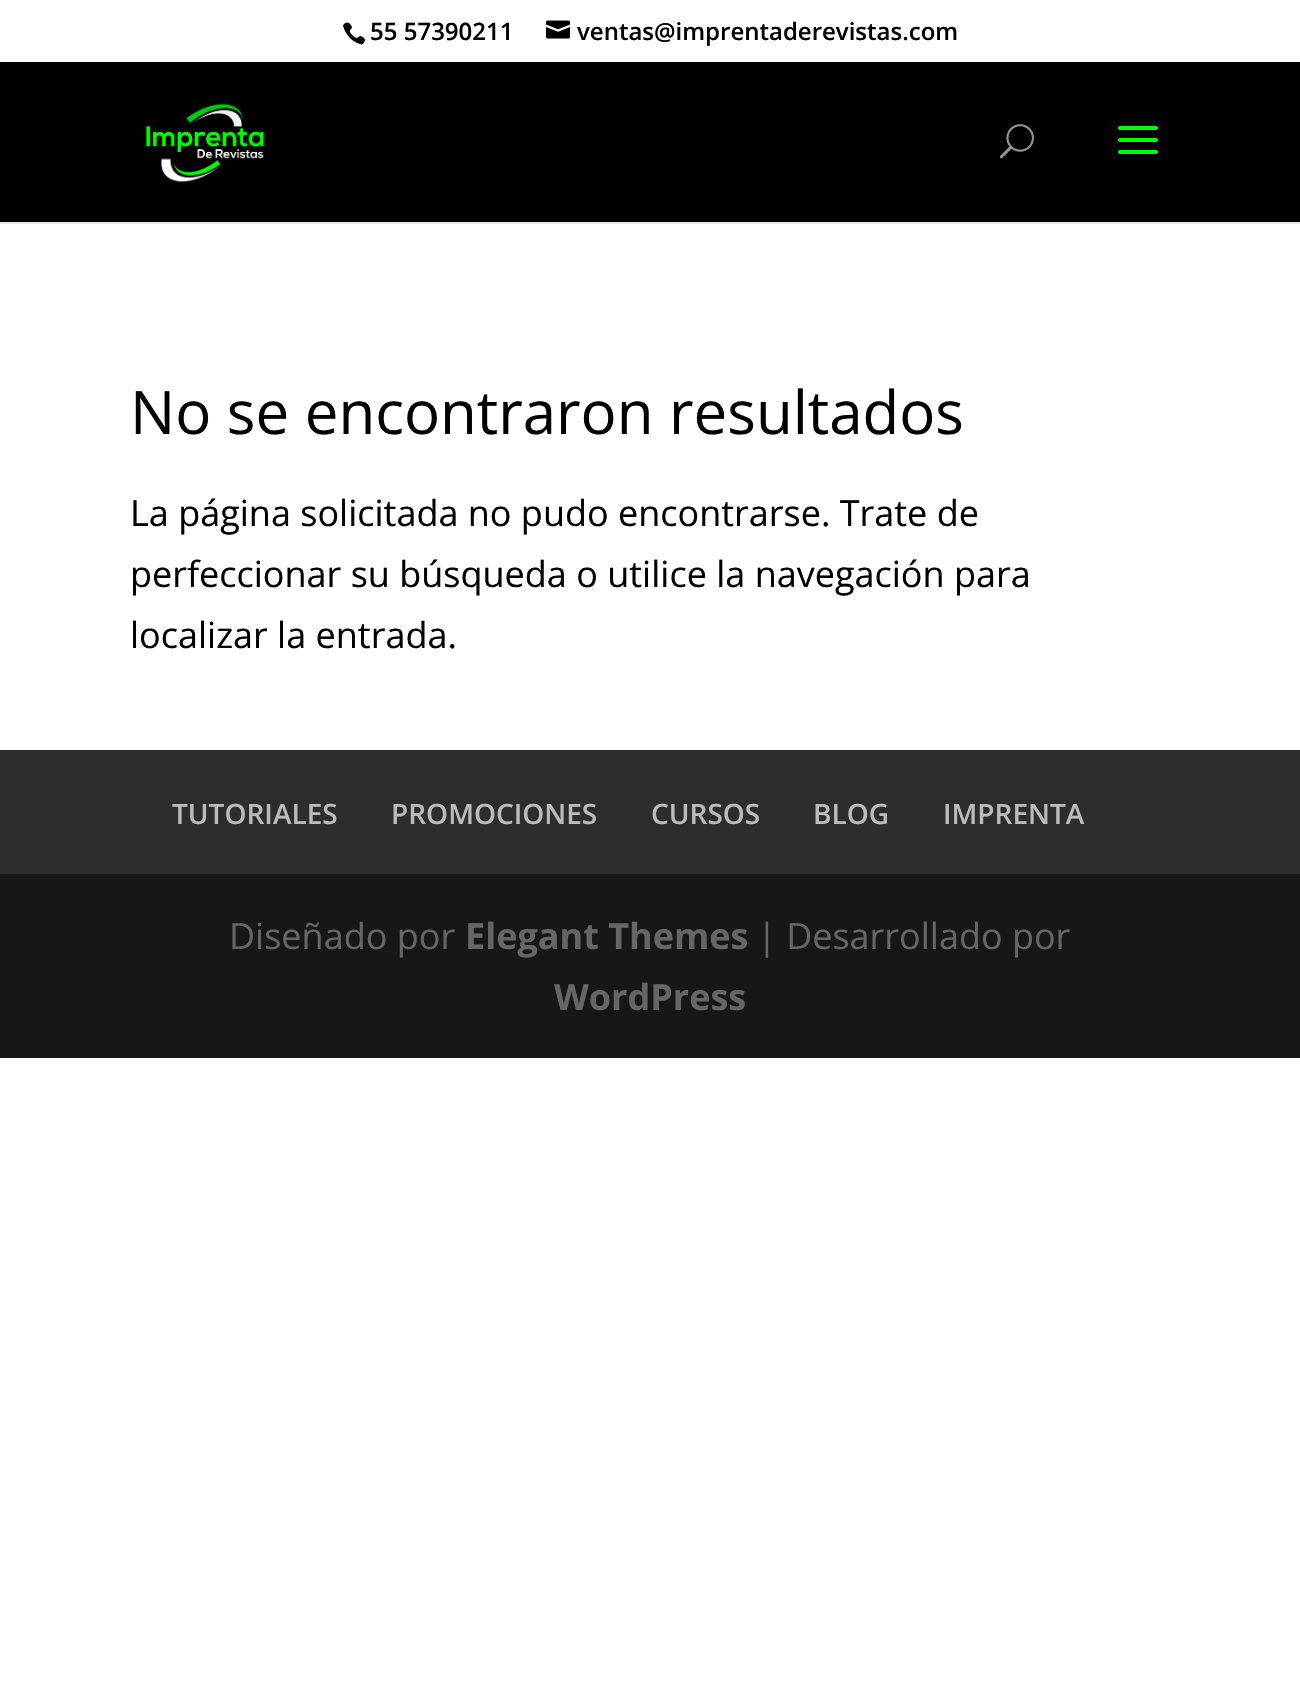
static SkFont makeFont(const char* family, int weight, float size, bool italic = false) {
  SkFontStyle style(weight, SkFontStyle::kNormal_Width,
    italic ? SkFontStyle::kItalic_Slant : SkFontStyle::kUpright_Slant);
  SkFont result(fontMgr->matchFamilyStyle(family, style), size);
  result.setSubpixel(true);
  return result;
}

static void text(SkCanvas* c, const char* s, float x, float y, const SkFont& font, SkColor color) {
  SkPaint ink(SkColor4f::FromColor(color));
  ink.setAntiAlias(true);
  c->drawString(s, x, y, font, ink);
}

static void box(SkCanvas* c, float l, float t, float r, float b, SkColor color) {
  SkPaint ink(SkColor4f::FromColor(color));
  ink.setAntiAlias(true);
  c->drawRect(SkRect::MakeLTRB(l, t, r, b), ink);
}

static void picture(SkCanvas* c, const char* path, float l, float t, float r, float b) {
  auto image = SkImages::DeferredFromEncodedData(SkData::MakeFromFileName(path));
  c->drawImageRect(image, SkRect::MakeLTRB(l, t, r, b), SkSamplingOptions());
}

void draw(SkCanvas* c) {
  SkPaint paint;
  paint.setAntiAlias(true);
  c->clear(0xffffffff);
  picture(c, "img_01.png", 343, 22, 365, 45);
  SkFont face1 = makeFont("Open Sans", 600, 24);
  text(c, "55 57390211", 370, 40, face1, 0xff000000);
  picture(c, "img_02.png", 546, 20, 570, 39);
  text(c, "ventas@imprentaderevistas.com", 577, 40, face1, 0xff000000);
  box(c, 0, 222, 1300, 224, 0xffe6e6e6);
  box(c, 0, 62, 1300, 222, 0xff000000);
  picture(c, "img_03.png", 145, 103, 265, 183);
  picture(c, "img_04.png", 999, 124, 1034, 159);
  picture(c, "img_05.png", 1118, 126, 1158, 154);
  SkFont face2 = makeFont("Open Sans", 400, 60);
  text(c, "No se encontraron resultados", 130, 434, face2, 0xff000000);
  SkFont face3 = makeFont("Open Sans", 400, 36);
  text(c, "La página solicitada no pudo encontrarse. Trate de", 130, 526, face3, 0xff000000);
  text(c, "perfeccionar su búsqueda o utilice la navegación para", 130, 587, face3, 0xff000000);
  text(c, "localizar la entrada.", 130, 648, face3, 0xff000000);
  box(c, 0, 750, 1300, 874, 0xff2d2d2d);
  SkFont face4 = makeFont("Open Sans", 600, 28);
  text(c, "TUTORIALES", 172, 824, face4, 0xffbbbbbb);
  text(c, "PROMOCIONES", 391, 824, face4, 0xffbbbbbb);
  text(c, "CURSOS", 651, 824, face4, 0xffbbbbbb);
  text(c, "BLOG", 813, 824, face4, 0xffbbbbbb);
  text(c, "IMPRENTA", 943, 824, face4, 0xffbbbbbb);
  box(c, 0, 874, 1300, 1058, 0xff171717);
  text(c, "Diseñado por", 229, 949, face3, 0xff666666);
  SkFont face5 = makeFont("Open Sans", 700, 36);
  text(c, "Elegant Themes", 465, 949, face5, 0xff666666);
  text(c, "| Desarrollado por", 757, 949, face3, 0xff666666);
  text(c, "WordPress", 554, 1010, face5, 0xff666666);
}
